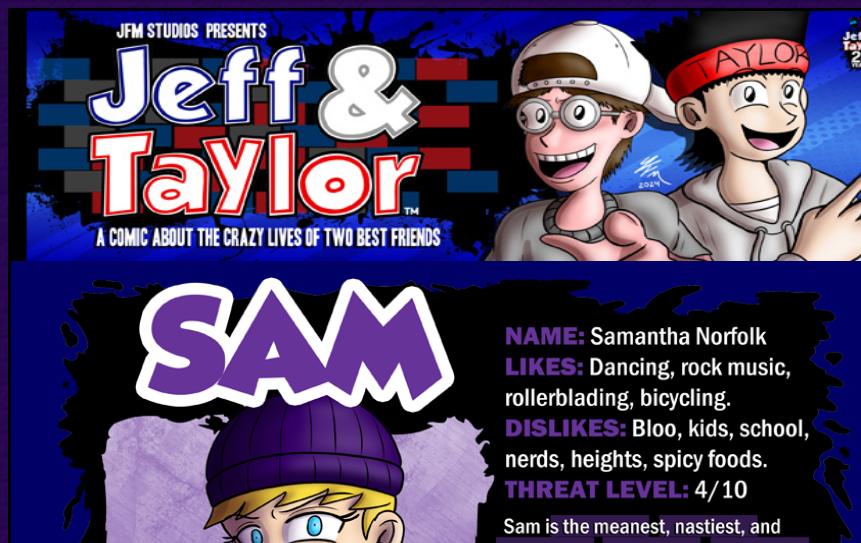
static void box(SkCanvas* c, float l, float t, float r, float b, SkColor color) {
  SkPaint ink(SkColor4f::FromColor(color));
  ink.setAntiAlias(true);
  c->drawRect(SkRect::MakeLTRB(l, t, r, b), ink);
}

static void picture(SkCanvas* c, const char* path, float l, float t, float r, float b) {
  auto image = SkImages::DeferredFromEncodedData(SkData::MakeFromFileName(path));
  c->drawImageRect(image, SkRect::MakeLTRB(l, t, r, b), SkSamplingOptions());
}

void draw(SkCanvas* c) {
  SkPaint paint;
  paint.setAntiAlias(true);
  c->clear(0xffffffff);
  picture(c, "img_01.png", 0, 0, 861, 543);
  box(c, 11, 261, 861, 543, 0xff000066);
  paint.setStyle(SkPaint::kStroke_Style);
  paint.setStrokeWidth(3);
  paint.setColor(0xff000000);
  c->drawRect(SkRect::MakeLTRB(9.5f, 9.5f, 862.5f, 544.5f), paint);
  picture(c, "img_02.png", 11, 11, 861, 261);
  picture(c, "img_03.png", 58, 277, 853, 543);
}
